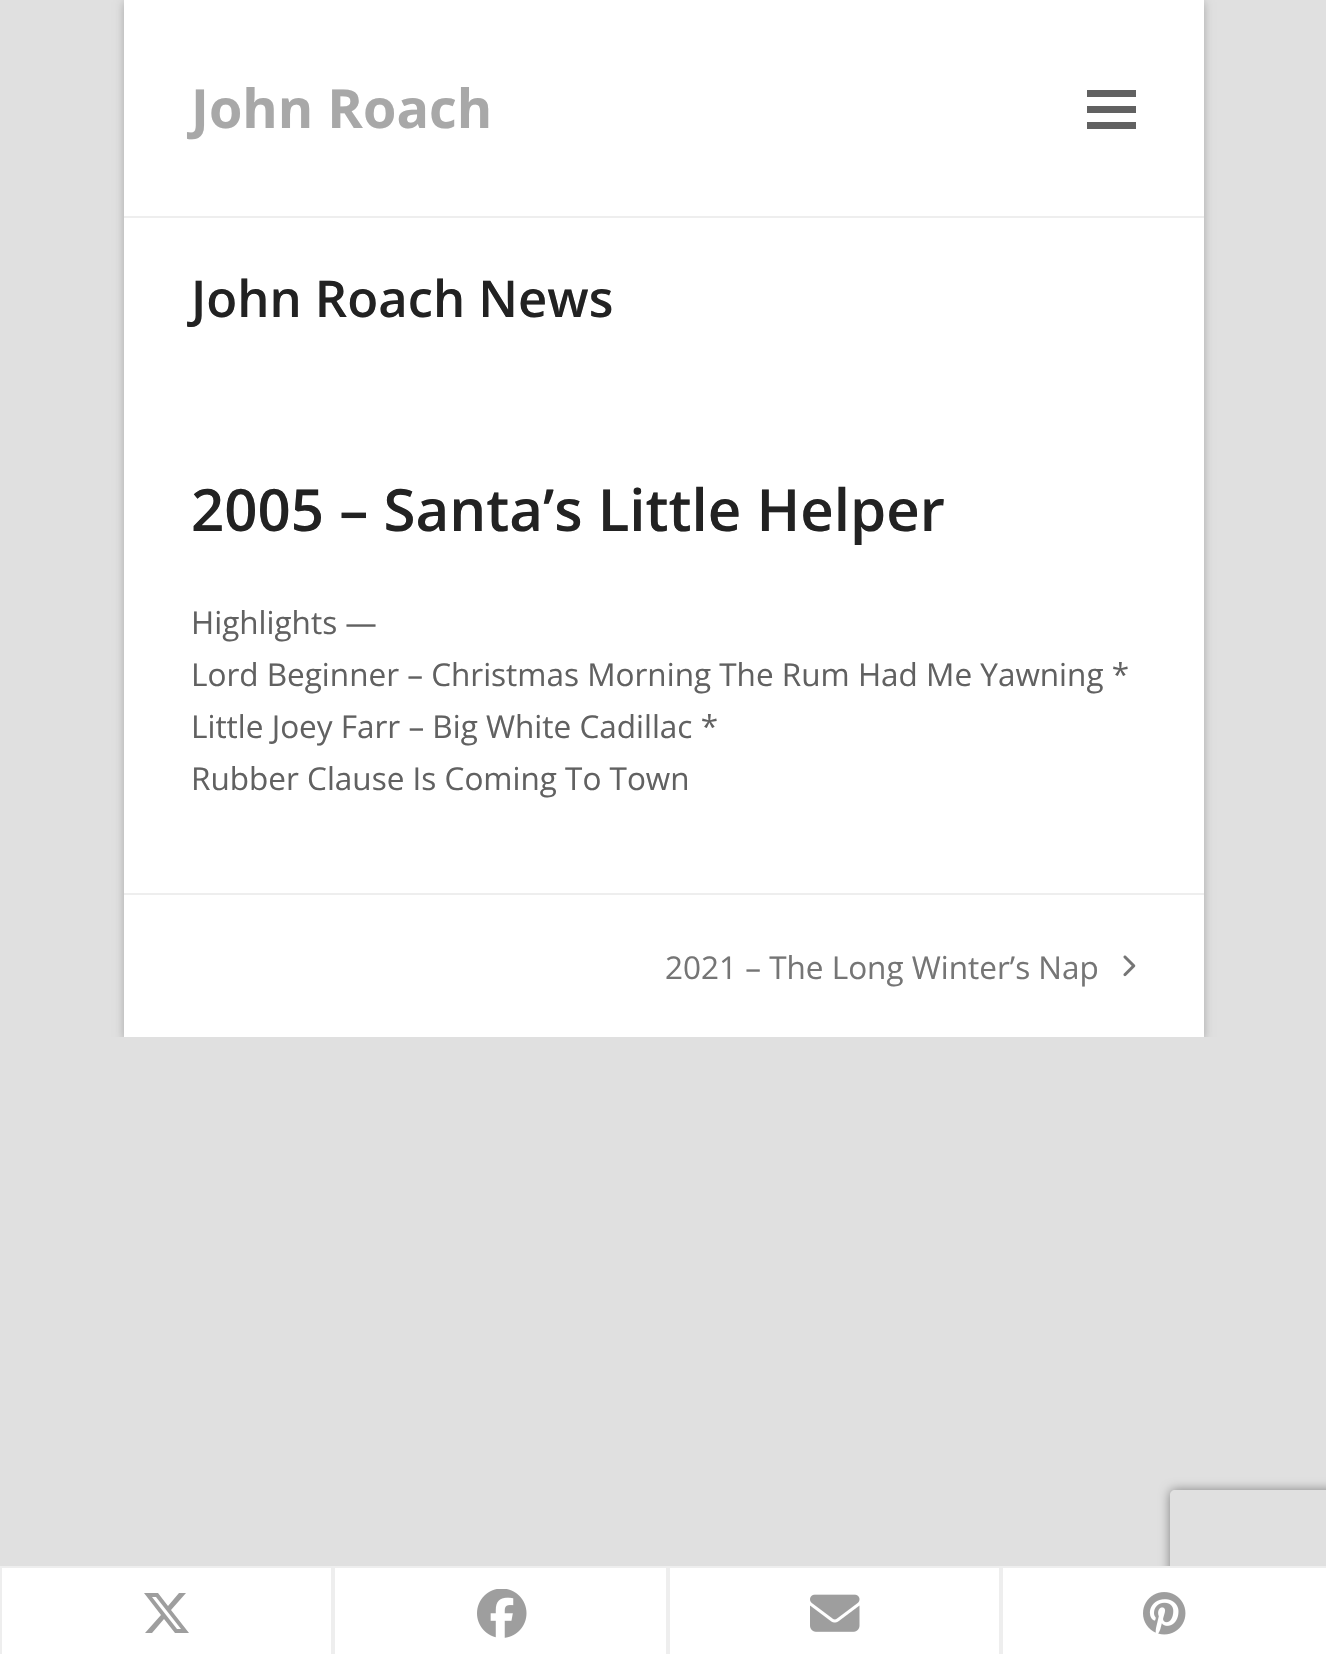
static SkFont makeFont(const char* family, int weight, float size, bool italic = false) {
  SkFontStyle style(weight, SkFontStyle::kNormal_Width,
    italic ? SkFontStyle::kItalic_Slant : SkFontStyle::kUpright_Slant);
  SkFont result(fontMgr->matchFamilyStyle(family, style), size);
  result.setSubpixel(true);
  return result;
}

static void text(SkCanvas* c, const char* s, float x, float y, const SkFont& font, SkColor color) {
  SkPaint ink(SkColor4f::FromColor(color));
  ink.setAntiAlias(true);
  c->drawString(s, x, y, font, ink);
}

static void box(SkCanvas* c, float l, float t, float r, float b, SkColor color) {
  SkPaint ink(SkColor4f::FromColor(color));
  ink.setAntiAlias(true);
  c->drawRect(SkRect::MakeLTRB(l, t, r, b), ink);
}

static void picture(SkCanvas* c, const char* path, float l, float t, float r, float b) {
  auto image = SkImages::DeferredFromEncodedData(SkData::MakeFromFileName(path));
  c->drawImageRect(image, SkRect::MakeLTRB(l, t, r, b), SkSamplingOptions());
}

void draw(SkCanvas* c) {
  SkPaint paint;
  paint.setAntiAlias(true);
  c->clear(0xffe0e0e0);
  c->save();
  c->clipRect(SkRect::MakeLTRB(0, 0, 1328, 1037));
  paint.setColor(0x40000000);
  paint.setMaskFilter(SkMaskFilter::MakeBlur(kNormal_SkBlurStyle, 4.5f));
  c->drawRect(SkRect::MakeLTRB(124, 2, 1204, 1040), paint);
  paint.setMaskFilter(nullptr);
  c->restore();
  box(c, 124, 0, 1204, 1037, 0xffffffff);
  SkFont face1 = makeFont("Open Sans", 700, 54);
  text(c, "John Roach", 191, 128, face1, 0xffa8a8a8);
  box(c, 1087, 106, 1136, 113, 0xff616161);
  box(c, 1087, 90, 1136, 97, 0xff616161);
  box(c, 1087, 122, 1136, 129, 0xff616161);
  box(c, 124, 216, 1204, 218, 0xffeeeeee);
  SkFont face2 = makeFont("Open Sans", 600, 50.75f);
  text(c, "John Roach News", 191, 317, face2, 0xff222222);
  SkFont face3 = makeFont("Open Sans", 600, 58.2f);
  text(c, "2005 – Santa’s Little Helper", 191, 531, face3, 0xff222222);
  SkFont face4 = makeFont("Open Sans", 400, 31.5f);
  text(c, "Highlights —", 191, 634, face4, 0xff616161);
  text(c, "Lord Beginner – Christmas Morning The Rum Had Me Yawning *", 191, 686, face4, 0xff616161);
  text(c, "Little Joey Farr – Big White Cadillac *", 191, 738, face4, 0xff616161);
  text(c, "Rubber Clause Is Coming To Town", 191, 790, face4, 0xff616161);
  paint.setColor(0xffffffff);
  c->drawRect(SkRect::MakeLTRB(1, 1567, 332, 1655), paint);
  paint.setStyle(SkPaint::kStroke_Style);
  paint.setStrokeWidth(2);
  paint.setColor(0xffeeeeee);
  c->drawRect(SkRect::MakeLTRB(1, 1567, 332, 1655), paint);
  paint.setStyle(SkPaint::kFill_Style);
  paint.setColor(0xff9e9e9e);
  c->drawPath(SkPathBuilder().moveTo(179, 1593).lineTo(186, 1593).lineTo(171, 1610).lineTo(189, 1633).lineTo(175, 1633).lineTo(164, 1619).lineTo(152, 1633).lineTo(145, 1633).lineTo(161, 1615).lineTo(144, 1593).lineTo(158, 1593).lineTo(168, 1606).close().moveTo(177, 1629).lineTo(181, 1629).lineTo(156, 1597).lineTo(152, 1597).close().detach(), paint);
  paint.setColor(0xffffffff);
  c->drawRect(SkRect::MakeLTRB(334, 1567, 667, 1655), paint);
  paint.setStyle(SkPaint::kStroke_Style);
  paint.setColor(0xffeeeeee);
  c->drawRect(SkRect::MakeLTRB(334, 1567, 667, 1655), paint);
  picture(c, "img_01.png", 477, 1589, 527, 1638);
  paint.setStyle(SkPaint::kFill_Style);
  paint.setColor(0xffffffff);
  c->drawRect(SkRect::MakeLTRB(669, 1567, 1000, 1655), paint);
  paint.setStyle(SkPaint::kStroke_Style);
  paint.setColor(0xffeeeeee);
  c->drawRect(SkRect::MakeLTRB(669, 1567, 1000, 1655), paint);
  picture(c, "img_02.png", 810, 1594, 860, 1632);
  c->save();
  c->clipPath(SkPathBuilder(SkPathFillType::kEvenOdd).moveTo(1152, 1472).lineTo(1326, 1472).lineTo(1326, 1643).lineTo(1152, 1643).close().moveTo(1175, 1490).lineTo(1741, 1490).cubicTo(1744, 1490, 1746, 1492, 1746, 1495).lineTo(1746, 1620).cubicTo(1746, 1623, 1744, 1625, 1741, 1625).lineTo(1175, 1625).cubicTo(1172, 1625, 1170, 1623, 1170, 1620).lineTo(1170, 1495).cubicTo(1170, 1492, 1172, 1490, 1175, 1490).close().detach(), true);
  paint.setStyle(SkPaint::kFill_Style);
  paint.setColor(0xff808080);
  paint.setMaskFilter(SkMaskFilter::MakeBlur(kNormal_SkBlurStyle, 5.5f));
  c->drawRoundRect(SkRect::MakeLTRB(1170, 1490, 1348, 1625), 5, 5, paint);
  paint.setMaskFilter(nullptr);
  c->restore();
  paint.setColor(0xffffffff);
  c->drawRect(SkRect::MakeLTRB(1002, 1567, 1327, 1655), paint);
  paint.setStyle(SkPaint::kStroke_Style);
  paint.setColor(0xffeeeeee);
  c->drawRect(SkRect::MakeLTRB(1002, 1567, 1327, 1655), paint);
  picture(c, "img_03.png", 1143, 1592, 1186, 1635);
  box(c, 124, 893, 1204, 895, 0xffeeeeee);
  text(c, "2021 – The Long Winter’s Nap", 665, 979, face4, 0xff757575);
  picture(c, "img_04.png", 1123, 955, 1136, 977);
}
